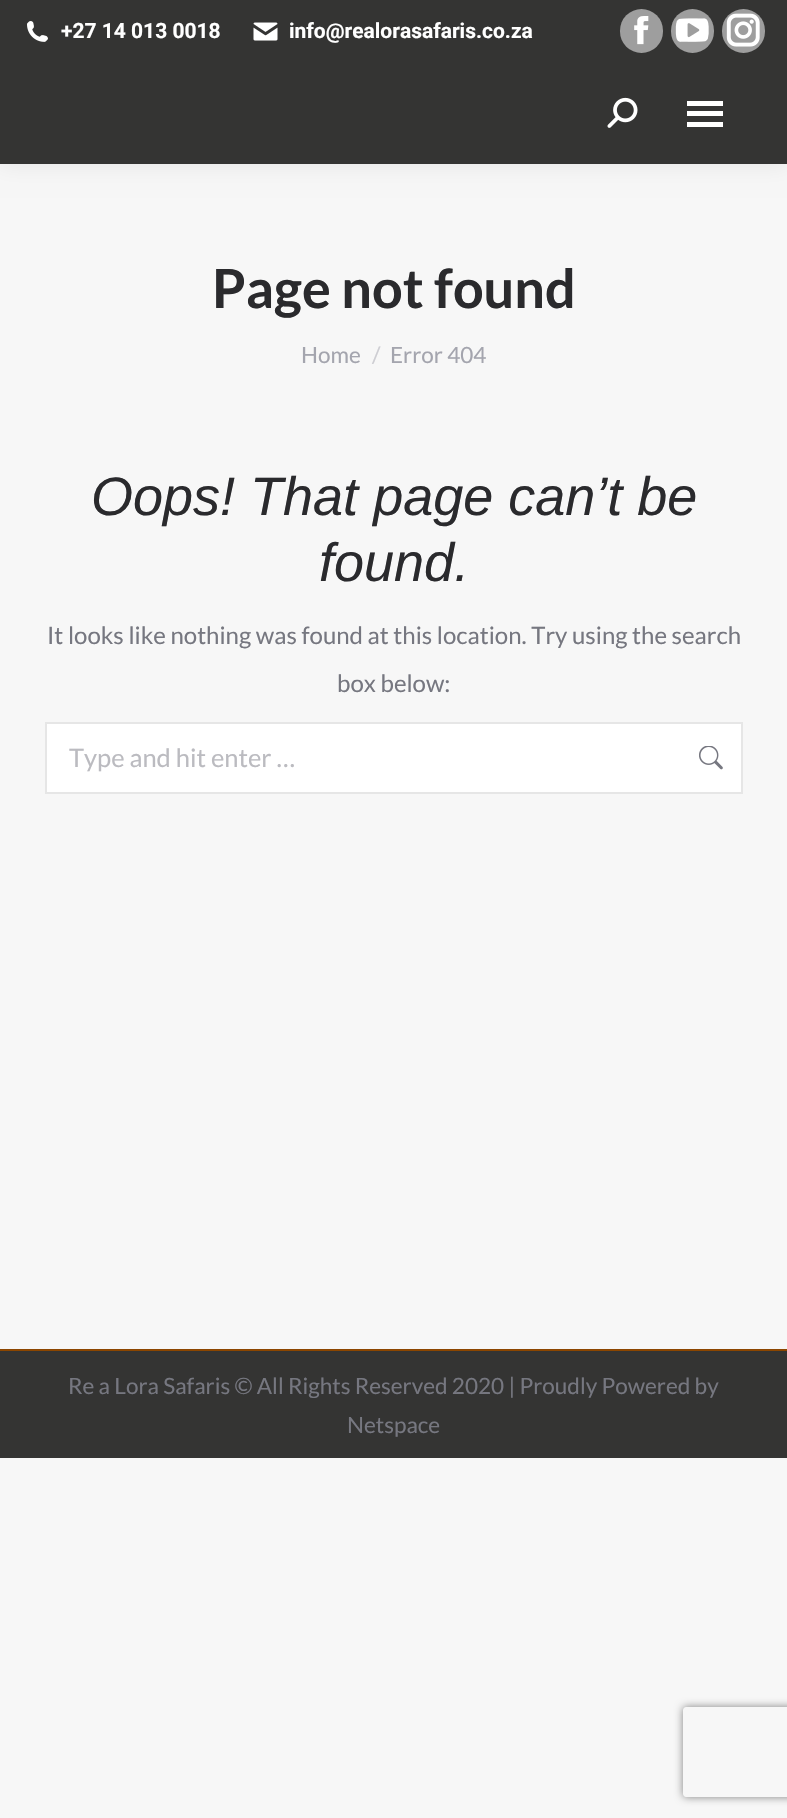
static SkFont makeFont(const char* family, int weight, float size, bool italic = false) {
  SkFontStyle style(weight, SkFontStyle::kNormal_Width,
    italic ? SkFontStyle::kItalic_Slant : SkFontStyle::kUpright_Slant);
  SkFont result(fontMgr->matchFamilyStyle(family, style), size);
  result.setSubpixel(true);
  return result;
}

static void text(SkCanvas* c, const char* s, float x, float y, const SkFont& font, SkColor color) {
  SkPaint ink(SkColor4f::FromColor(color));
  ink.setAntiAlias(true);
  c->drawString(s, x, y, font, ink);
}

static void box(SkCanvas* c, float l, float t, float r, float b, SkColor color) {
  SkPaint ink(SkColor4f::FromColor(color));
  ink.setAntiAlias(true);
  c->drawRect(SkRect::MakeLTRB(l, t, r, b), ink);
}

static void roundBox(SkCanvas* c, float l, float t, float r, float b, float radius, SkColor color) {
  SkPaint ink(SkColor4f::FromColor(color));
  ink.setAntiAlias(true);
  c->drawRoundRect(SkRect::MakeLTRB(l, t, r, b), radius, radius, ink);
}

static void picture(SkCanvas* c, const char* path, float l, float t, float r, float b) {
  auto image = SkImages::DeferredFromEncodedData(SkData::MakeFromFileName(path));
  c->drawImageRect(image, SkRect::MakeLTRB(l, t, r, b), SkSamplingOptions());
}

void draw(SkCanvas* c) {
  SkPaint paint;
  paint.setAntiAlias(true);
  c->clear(0xfff7f7f7);
  paint.setColor(0x12000000);
  paint.setMaskFilter(SkMaskFilter::MakeBlur(kNormal_SkBlurStyle, 11));
  c->drawRect(SkRect::MakeLTRB(-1, -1, 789, 165), paint);
  paint.setMaskFilter(nullptr);
  box(c, 0, 0, 787, 164, 0xff343433);
  picture(c, "img_01.png", 27, 21, 48, 42);
  SkFont face1 = makeFont("Roboto", 700, 21);
  text(c, "+27 14 013 0018", 61, 38, face1, 0xffffffff);
  picture(c, "img_02.png", 253, 22, 278, 41);
  text(c, "info@realorasafaris.co.za", 289, 38, face1, 0xffffffff);
  roundBox(c, 620, 9, 663, 53, 21.5f, 0xff9e9e9e);
  picture(c, "img_03.png", 634, 16, 649, 45);
  roundBox(c, 671, 9, 714, 53, 21.5f, 0xff9e9e9e);
  picture(c, "img_04.png", 675, 18, 709, 42);
  roundBox(c, 722, 9, 765, 53, 21.5f, 0xff9e9e9e);
  picture(c, "img_05.png", 726, 13, 760, 47);
  picture(c, "img_06.png", 607, 97, 638, 128);
  box(c, 687, 101, 723, 106, 0xffffffff);
  box(c, 687, 111, 723, 116, 0xffffffff);
  box(c, 687, 122, 723, 127, 0xffffffff);
  SkFont face2 = makeFont("Lato", 700, 54);
  text(c, "Page not found", 212, 308, face2, 0xff2a2a2d);
  SkFont face3 = makeFont("Lato", 400, 22.5f);
  text(c, "Home", 301, 363, face3, 0xffa4a5ae);
  text(c, "/", 372, 363, face3, 0xffceced3);
  text(c, "Error 404", 390, 363, face3, 0xffa4a5ae);
  SkFont face4 = makeFont("Liberation Sans", 400, 54, true);
  text(c, "Oops! That page can’t be", 91, 515, face4, 0xff2a2a2d);
  text(c, "found.", 319, 581, face4, 0xff2a2a2d);
  SkFont face5 = makeFont("Lato", 400, 24);
  text(c, "It looks like nothing was found at this location. Try using the search", 47, 644, face5, 0xff767780);
  text(c, "box below:", 337, 692, face5, 0xff767780);
  paint.setColor(0xffffffff);
  c->drawRect(SkRect::MakeLTRB(46, 723, 742, 793), paint);
  paint.setStyle(SkPaint::kStroke_Style);
  paint.setStrokeWidth(2);
  paint.setColor(0xffe6e6e6);
  c->drawRect(SkRect::MakeLTRB(46, 723, 742, 793), paint);
  SkFont face6 = makeFont("Lato", 400, 25.5f);
  text(c, "Type and hit enter …", 69, 767, face6, 0xffbbbbc0);
  picture(c, "img_07.png", 699, 746, 723, 770);
  box(c, 0, 1351, 787, 1458, 0xff343433);
  box(c, 0, 1349, 787, 1351, 0xff8c4600);
  text(c, "Re a Lora Safaris © All Rights Reserved 2020 | Proudly Powered by", 68, 1394, face3, 0xff767780);
  text(c, "Netspace", 347, 1433, face3, 0xff767780);
  c->save();
  c->clipPath(SkPathBuilder(SkPathFillType::kEvenOdd).moveTo(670, 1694).lineTo(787, 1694).lineTo(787, 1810).lineTo(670, 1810).close().moveTo(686, 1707).lineTo(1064, 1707).cubicTo(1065.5f, 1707, 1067, 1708.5f, 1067, 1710).lineTo(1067, 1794).cubicTo(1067, 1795.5f, 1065.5f, 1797, 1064, 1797).lineTo(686, 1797).cubicTo(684.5f, 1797, 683, 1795.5f, 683, 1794).lineTo(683, 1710).cubicTo(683, 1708.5f, 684.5f, 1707, 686, 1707).close().detach(), true);
  paint.setStyle(SkPaint::kFill_Style);
  paint.setColor(0xff808080);
  paint.setMaskFilter(SkMaskFilter::MakeBlur(kNormal_SkBlurStyle, 4));
  c->drawRoundRect(SkRect::MakeLTRB(683, 1707, 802, 1797), 3, 3, paint);
  paint.setMaskFilter(nullptr);
  c->restore();
}
